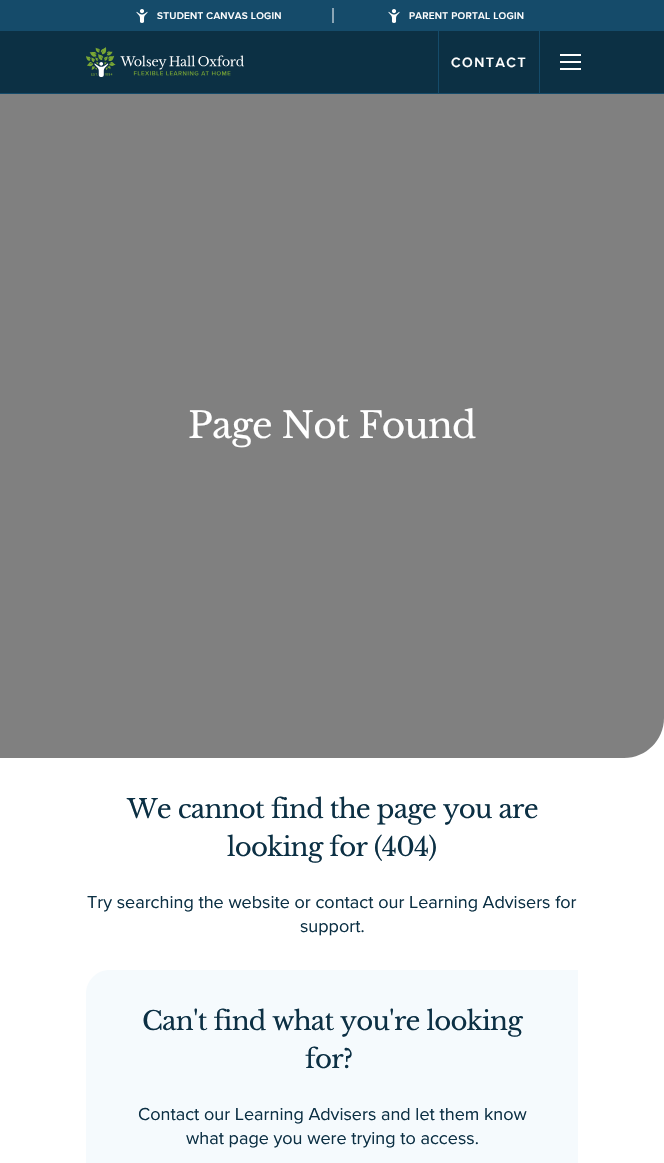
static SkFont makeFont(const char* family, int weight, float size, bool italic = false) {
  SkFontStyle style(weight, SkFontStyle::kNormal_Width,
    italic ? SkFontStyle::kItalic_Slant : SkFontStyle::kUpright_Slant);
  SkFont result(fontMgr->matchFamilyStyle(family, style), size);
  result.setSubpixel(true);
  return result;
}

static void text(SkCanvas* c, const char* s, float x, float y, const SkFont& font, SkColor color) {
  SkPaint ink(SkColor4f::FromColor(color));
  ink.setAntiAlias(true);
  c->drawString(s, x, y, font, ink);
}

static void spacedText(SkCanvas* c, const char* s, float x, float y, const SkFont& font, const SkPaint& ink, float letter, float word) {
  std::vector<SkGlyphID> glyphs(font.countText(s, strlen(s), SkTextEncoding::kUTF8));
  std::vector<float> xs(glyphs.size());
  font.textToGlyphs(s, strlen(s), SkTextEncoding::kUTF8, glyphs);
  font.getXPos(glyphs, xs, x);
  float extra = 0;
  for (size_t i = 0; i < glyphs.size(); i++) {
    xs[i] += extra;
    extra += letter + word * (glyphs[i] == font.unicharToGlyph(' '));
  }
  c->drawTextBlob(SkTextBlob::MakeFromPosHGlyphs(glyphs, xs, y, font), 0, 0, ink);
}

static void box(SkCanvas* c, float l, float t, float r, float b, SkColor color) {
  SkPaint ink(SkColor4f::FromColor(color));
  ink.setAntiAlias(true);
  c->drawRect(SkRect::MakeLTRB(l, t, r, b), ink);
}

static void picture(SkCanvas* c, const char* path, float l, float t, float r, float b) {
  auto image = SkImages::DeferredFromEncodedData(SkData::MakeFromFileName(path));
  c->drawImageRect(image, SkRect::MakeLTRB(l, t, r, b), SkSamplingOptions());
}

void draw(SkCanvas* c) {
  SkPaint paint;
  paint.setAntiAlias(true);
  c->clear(0xffffffff);
  box(c, 0, 31, 664, 93, 0xff0c3044);
  box(c, 0, 93, 664, 94, 0xff154b6a);
  box(c, 0, 0, 664, 31, 0xff154b6a);
  picture(c, "img_01.png", 136, 9, 148, 23);
  SkFont face1 = makeFont("Proxima Nova", 600, 10);
  paint.setColor(0xffffffff);
  spacedText(c, "STUDENT CANVAS LOGIN", 157, 19, face1, paint, 0.25f, 0);
  box(c, 332, 8, 334, 23, 0xff8aa5b5);
  picture(c, "img_01.png", 388, 9, 400, 23);
  spacedText(c, "PARENT PORTAL LOGIN", 409, 19, face1, paint, 0.25f, 0);
  picture(c, "img_02.png", 86, 47, 244, 77);
  box(c, 539, 31, 540, 93, 0xff154b6a);
  box(c, 438, 31, 439, 93, 0xff154b6a);
  SkFont face2 = makeFont("Proxima Nova", 600, 14);
  spacedText(c, "CONTACT", 451, 67, face2, paint, 1.5f, 0);
  box(c, 560, 54, 581, 56, 0xffffffff);
  box(c, 560, 61, 581, 63, 0xffffffff);
  box(c, 560, 68, 581, 70, 0xffffffff);
  paint.setColor(0xff808080);
  c->drawPath(SkPathBuilder().moveTo(0, 94).lineTo(664, 94).lineTo(664, 718).cubicTo(664, 740, 646, 758, 624, 758).lineTo(0, 758).close().detach(), paint);
  SkFont face3 = makeFont("Libre Baskerville", 400, 36);
  paint.setColor(0xffffffff);
  spacedText(c, "Page Not Found", 188, 438, face3, paint, -0.75f, 0);
  SkFont face4 = makeFont("Libre Baskerville", 400, 26);
  paint.setColor(0xff0c3044);
  spacedText(c, "We cannot find the page you are", 127, 818, face4, paint, -0.75f, 0);
  spacedText(c, "looking for (404)", 227, 856, face4, paint, -0.75f, 0);
  SkFont face5 = makeFont("Proxima Nova", 400, 18);
  text(c, "Try searching the website or contact our Learning Advisers for", 87, 908, face5, 0xff0c3044);
  text(c, "support.", 300, 932, face5, 0xff0c3044);
  paint.setColor(0xfff5fafd);
  c->drawPath(SkPathBuilder().moveTo(110, 970).lineTo(578, 970).lineTo(578, 1163).cubicTo(578, 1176.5f, 567.5f, 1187, 554, 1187).lineTo(86, 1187).lineTo(86, 994).cubicTo(86, 980.5f, 96.5f, 970, 110, 970).close().detach(), paint);
  paint.setColor(0xff0c3044);
  spacedText(c, "Can't find what you're looking", 142, 1030, face4, paint, -0.75f, 0);
  spacedText(c, "for?", 305, 1068, face4, paint, -0.75f, 0);
  text(c, "Contact our Learning Advisers and let them know", 138, 1120, face5, 0xff0c3044);
  text(c, "what page you were trying to access.", 186, 1144, face5, 0xff0c3044);
}
